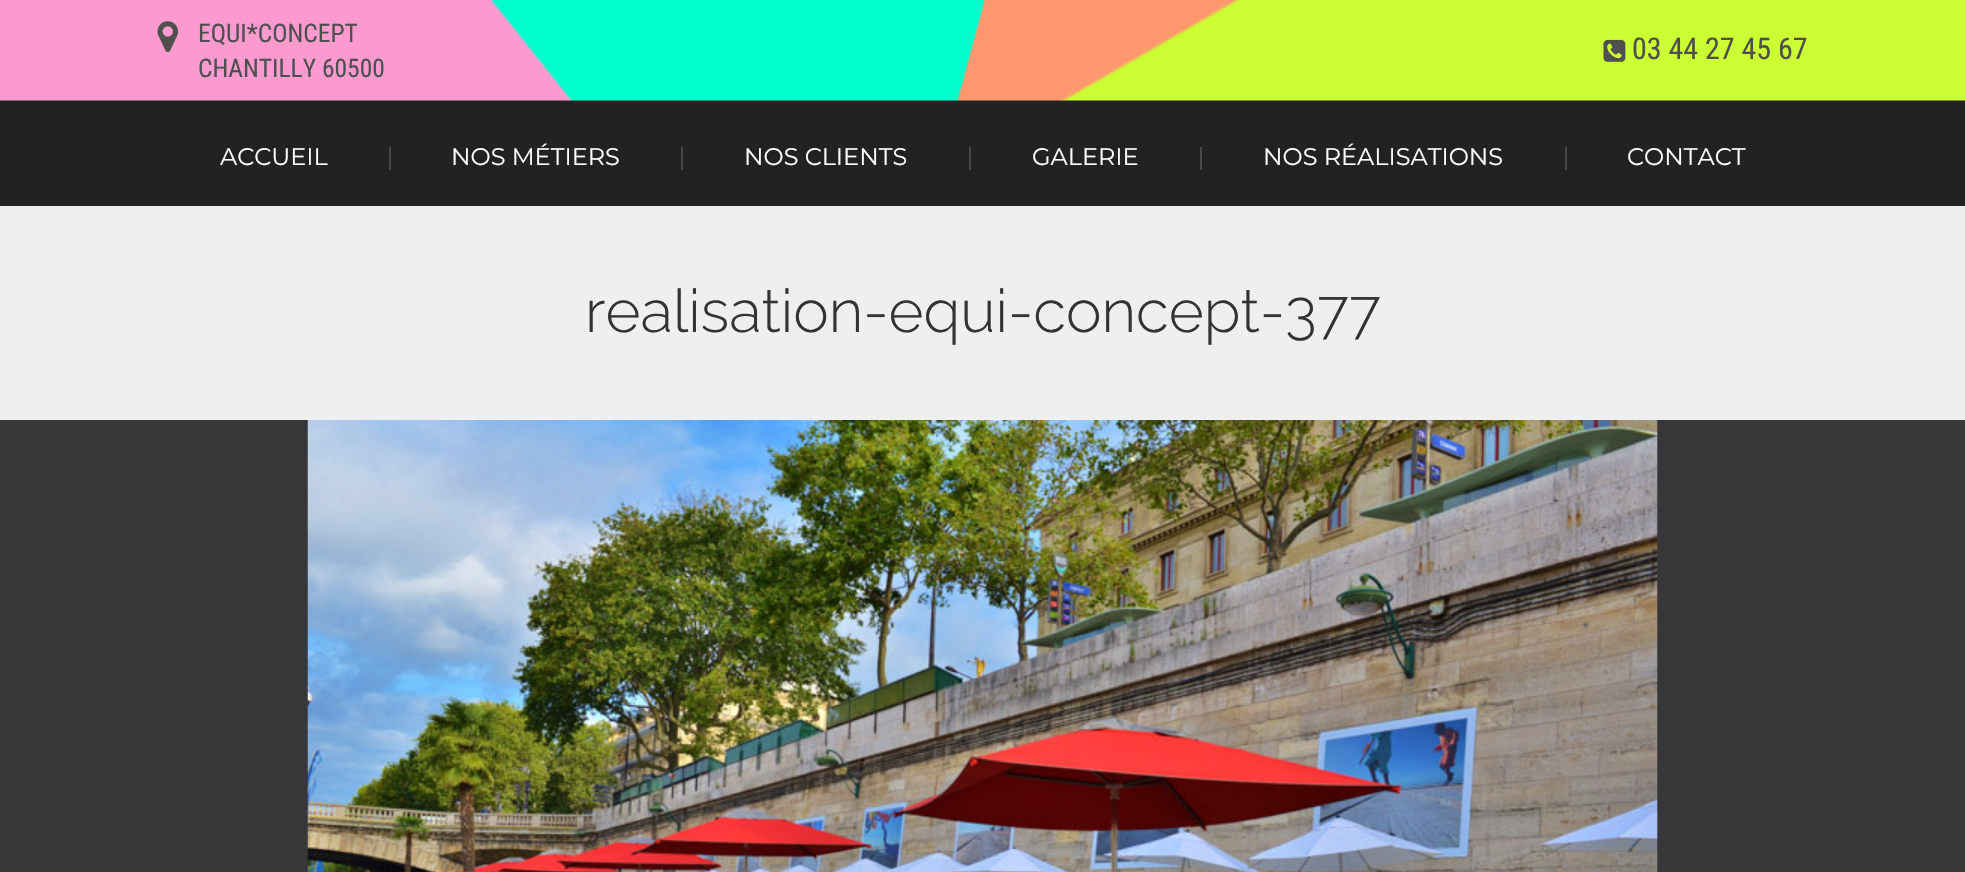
static SkFont makeFont(const char* family, int weight, float size, bool italic = false) {
  SkFontStyle style(weight, SkFontStyle::kNormal_Width,
    italic ? SkFontStyle::kItalic_Slant : SkFontStyle::kUpright_Slant);
  SkFont result(fontMgr->matchFamilyStyle(family, style), size);
  result.setSubpixel(true);
  return result;
}

static void text(SkCanvas* c, const char* s, float x, float y, const SkFont& font, SkColor color) {
  SkPaint ink(SkColor4f::FromColor(color));
  ink.setAntiAlias(true);
  c->drawString(s, x, y, font, ink);
}

static void box(SkCanvas* c, float l, float t, float r, float b, SkColor color) {
  SkPaint ink(SkColor4f::FromColor(color));
  ink.setAntiAlias(true);
  c->drawRect(SkRect::MakeLTRB(l, t, r, b), ink);
}

static void picture(SkCanvas* c, const char* path, float l, float t, float r, float b) {
  auto image = SkImages::DeferredFromEncodedData(SkData::MakeFromFileName(path));
  c->drawImageRect(image, SkRect::MakeLTRB(l, t, r, b), SkSamplingOptions());
}

void draw(SkCanvas* c) {
  SkPaint paint;
  paint.setAntiAlias(true);
  c->clear(0xff373739);
  box(c, 0, 100, 1965, 206, 0xff222222);
  picture(c, "img_01.png", 0, 0, 1965, 101);
  picture(c, "img_02.png", 157, 21, 179, 53);
  SkFont face1 = makeFont("Roboto Condensed", 400, 25.5f);
  text(c, "EQUI*CONCEPT", 198, 42, face1, 0xff4f4f4f);
  text(c, "CHANTILLY 60500", 198, 77, face1, 0xff4f4f4f);
  picture(c, "img_03.png", 1603, 39, 1626, 62);
  SkFont face2 = makeFont("Roboto Condensed", 400, 30);
  text(c, "03 44 27 45 67", 1632, 59, face2, 0xff4f4f4f);
  SkFont face3 = makeFont("Montserrat", 400, 24);
  text(c, "ACCUEIL", 220, 165, face3, 0xffffffff);
  box(c, 389, 147, 391, 170, 0xff47484b);
  text(c, "NOS MÉTIERS", 451, 165, face3, 0xffffffff);
  box(c, 681, 147, 683, 170, 0xff47484b);
  text(c, "NOS CLIENTS", 744, 165, face3, 0xffffffff);
  box(c, 969, 147, 971, 170, 0xff47484b);
  text(c, "GALERIE", 1032, 165, face3, 0xffffffff);
  box(c, 1200, 147, 1202, 170, 0xff47484b);
  text(c, "NOS RÉALISATIONS", 1263, 165, face3, 0xffffffff);
  box(c, 1565, 147, 1567, 170, 0xff47484b);
  text(c, "CONTACT", 1627, 165, face3, 0xffffffff);
  box(c, 0, 206, 1965, 420, 0xffefefef);
  SkFont face4 = makeFont("Raleway", 300, 60);
  text(c, "realisation-equi-concept-377", 585, 332, face4, 0xff333333);
  picture(c, "img_04.png", 307, 420, 1658, 872);
}
